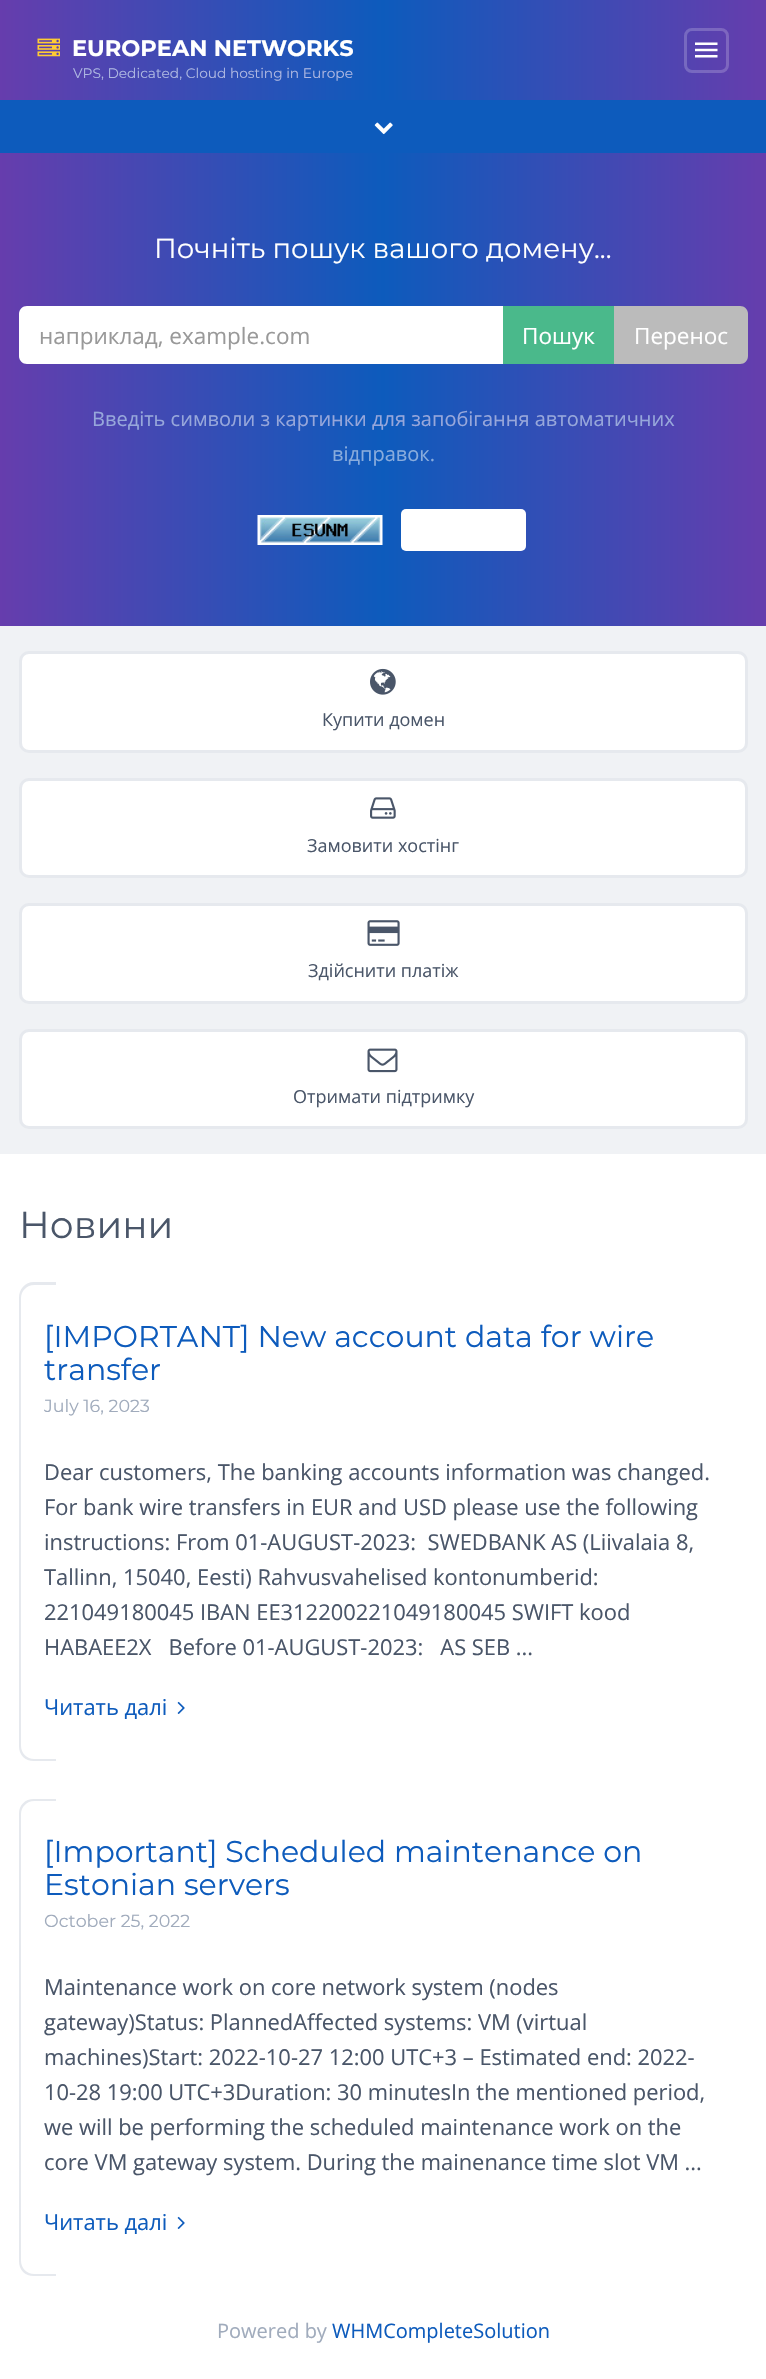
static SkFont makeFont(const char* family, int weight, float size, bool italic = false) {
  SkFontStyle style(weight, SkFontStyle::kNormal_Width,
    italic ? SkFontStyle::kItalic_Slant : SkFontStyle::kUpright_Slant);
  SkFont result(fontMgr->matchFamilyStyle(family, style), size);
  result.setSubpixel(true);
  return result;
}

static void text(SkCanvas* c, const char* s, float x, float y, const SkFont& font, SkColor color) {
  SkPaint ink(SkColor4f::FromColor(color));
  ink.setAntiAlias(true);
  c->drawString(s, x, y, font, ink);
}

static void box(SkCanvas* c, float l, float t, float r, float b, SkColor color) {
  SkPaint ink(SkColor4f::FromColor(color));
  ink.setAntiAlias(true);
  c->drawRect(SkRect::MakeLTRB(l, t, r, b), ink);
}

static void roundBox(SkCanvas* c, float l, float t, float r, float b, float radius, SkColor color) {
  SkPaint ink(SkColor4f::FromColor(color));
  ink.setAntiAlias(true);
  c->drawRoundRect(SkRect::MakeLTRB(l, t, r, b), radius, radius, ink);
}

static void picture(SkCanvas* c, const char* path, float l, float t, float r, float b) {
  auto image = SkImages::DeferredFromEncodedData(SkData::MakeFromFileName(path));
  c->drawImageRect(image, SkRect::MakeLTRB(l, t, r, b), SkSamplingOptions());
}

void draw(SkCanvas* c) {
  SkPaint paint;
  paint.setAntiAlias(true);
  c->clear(0xffffffff);
  {
    const SkColor colors[] = {0xff663dad, 0xff0d5bbc, 0xff663dad};
    const float stops[] = {0, 0.5f, 1};
    const SkPoint ends[] = {{0, 50}, {766, 50}};
    paint.setShader(SkGradientShader::MakeLinear(ends, colors, stops, 3, SkTileMode::kClamp));
    paint.setAlpha(255);
  }
  c->drawRect(SkRect::MakeLTRB(0, 0, 766, 100), paint);
  picture(c, "img_01.png", 37, 38, 60, 57);
  SkFont face1 = makeFont("Montserrat", 700, 22.5f);
  text(c, "EUROPEAN NETWORKS", 72, 56, face1, 0xffffffff);
  SkFont face2 = makeFont("Montserrat", 400, 13.75f);
  text(c, "VPS, Dedicated, Cloud hosting in Europe", 73, 78, face2, 0xffaeb8e2);
  paint.setStyle(SkPaint::kStroke_Style);
  paint.setStrokeWidth(3);
  paint.setShader(nullptr);
  paint.setColor(0x33ffffff);
  c->drawRoundRect(SkRect::MakeLTRB(685.5f, 29.5f, 727.5f, 71.5f), 6.5f, 6.5f, paint);
  picture(c, "img_02.png", 695, 42, 718, 58);
  box(c, 0, 100, 766, 153, 0xff0d5bbc);
  picture(c, "img_03.png", 374, 122, 393, 135);
  paint.setStyle(SkPaint::kFill_Style);
  {
    const SkColor colors[] = {0xff663dad, 0xff0d5bbc, 0xff663dad};
    const float stops[] = {0, 0.5f, 1};
    const SkPoint ends[] = {{0, 389}, {766, 389}};
    paint.setShader(SkGradientShader::MakeLinear(ends, colors, stops, 3, SkTileMode::kClamp));
    paint.setAlpha(255);
  }
  c->drawRect(SkRect::MakeLTRB(0, 153, 766, 626), paint);
  SkFont face3 = makeFont("Montserrat", 400, 27.5f);
  text(c, "Почніть пошук вашого домену...", 154, 258, face3, 0xffffffff);
  paint.setShader(nullptr);
  paint.setColor(0xffffffff);
  c->drawPath(SkPathBuilder().moveTo(27, 306).lineTo(504, 306).lineTo(504, 364).lineTo(27, 364).cubicTo(22.5f, 364, 19, 360.5f, 19, 356).lineTo(19, 314).cubicTo(19, 309.5f, 22.5f, 306, 27, 306).close().detach(), paint);
  SkFont face4 = makeFont("Open Sans", 400, 22.5f);
  text(c, "наприклад, example.com", 39, 344, face4, 0xff999999);
  box(c, 503, 306, 614, 364, 0xff4ab98b);
  text(c, "Пошук", 522, 344, face4, 0xffffffff);
  paint.setColor(0xffbbbbbb);
  c->drawPath(SkPathBuilder().moveTo(614, 306).lineTo(740, 306).cubicTo(744.5f, 306, 748, 309.5f, 748, 314).lineTo(748, 356).cubicTo(748, 360.5f, 744.5f, 364, 740, 364).lineTo(614, 364).close().detach(), paint);
  text(c, "Перенос", 634, 344, face4, 0xffffffff);
  SkFont face5 = makeFont("Open Sans", 400, 20);
  text(c, "Введіть символи з картинки для запобігання автоматичних", 92, 426, face5, 0xff97a7db);
  text(c, "відправок.", 332, 461, face5, 0xff89acdd);
  picture(c, "img_04.png", 257, 515, 383, 545);
  roundBox(c, 401, 509, 526, 551, 5, 0xffffffff);
  box(c, 0, 626, 766, 1154, 0xfff0f2f5);
  paint.setColor(0xffffffff);
  c->drawRoundRect(SkRect::MakeLTRB(20.5f, 652.5f, 746.5f, 751.5f), 8.5f, 8.5f, paint);
  paint.setStyle(SkPaint::kStroke_Style);
  paint.setColor(0xffe6e9ee);
  c->drawRoundRect(SkRect::MakeLTRB(20.5f, 652.5f, 746.5f, 751.5f), 8.5f, 8.5f, paint);
  picture(c, "img_05.png", 370, 668, 396, 695);
  SkFont face6 = makeFont("Open Sans", 400, 18);
  text(c, "Купити домен", 322, 726, face6, 0xff4a5669);
  paint.setStyle(SkPaint::kFill_Style);
  paint.setColor(0xffffffff);
  c->drawRoundRect(SkRect::MakeLTRB(20.5f, 779.5f, 746.5f, 876.5f), 8.5f, 8.5f, paint);
  paint.setStyle(SkPaint::kStroke_Style);
  paint.setColor(0xffe6e9ee);
  c->drawRoundRect(SkRect::MakeLTRB(20.5f, 779.5f, 746.5f, 876.5f), 8.5f, 8.5f, paint);
  picture(c, "img_06.png", 370, 797, 396, 819);
  text(c, "Замовити хостінг", 307, 852, face6, 0xff4a5669);
  paint.setStyle(SkPaint::kFill_Style);
  paint.setColor(0xffffffff);
  c->drawRoundRect(SkRect::MakeLTRB(20.5f, 904.5f, 746.5f, 1002.5f), 8.5f, 8.5f, paint);
  paint.setStyle(SkPaint::kStroke_Style);
  paint.setColor(0xffe6e9ee);
  c->drawRoundRect(SkRect::MakeLTRB(20.5f, 904.5f, 746.5f, 1002.5f), 8.5f, 8.5f, paint);
  picture(c, "img_07.png", 367, 920, 400, 946);
  text(c, "Здійснити платіж", 308, 977, face6, 0xff4a5669);
  paint.setStyle(SkPaint::kFill_Style);
  paint.setColor(0xffffffff);
  c->drawRoundRect(SkRect::MakeLTRB(20.5f, 1030.5f, 746.5f, 1127.5f), 8.5f, 8.5f, paint);
  paint.setStyle(SkPaint::kStroke_Style);
  paint.setColor(0xffe6e9ee);
  c->drawRoundRect(SkRect::MakeLTRB(20.5f, 1030.5f, 746.5f, 1127.5f), 8.5f, 8.5f, paint);
  picture(c, "img_08.png", 367, 1048, 398, 1073);
  text(c, "Отримати підтримку", 293, 1103, face6, 0xff4a5669);
  SkFont face7 = makeFont("Montserrat", 400, 37.5f);
  text(c, "Новини", 19, 1238, face7, 0xff4a5669);
  SkFont face8 = makeFont("Montserrat", 400, 30);
  text(c, "[IMPORTANT] New account data for wire", 44, 1347, face8, 0xff0d5bbc);
  text(c, "transfer", 44, 1380, face8, 0xff0d5bbc);
  SkFont face9 = makeFont("Montserrat", 400, 17.5f);
  text(c, "July 16, 2023", 44, 1412, face9, 0xffa0abbc);
  SkFont face10 = makeFont("Open Sans", 400, 21.9f);
  text(c, "Dear customers, The banking accounts information was changed.", 44, 1480, face10, 0xff4a5669);
  text(c, "For bank wire transfers in EUR and USD please use the following", 44, 1515, face10, 0xff4a5669);
  text(c, "instructions: From 01-AUGUST-2023:  SWEDBANK AS (Liivalaia 8,", 44, 1550, face10, 0xff4a5669);
  text(c, "Tallinn, 15040, Eesti) Rahvusvahelised kontonumberid:", 44, 1585, face10, 0xff4a5669);
  text(c, "221049180045 IBAN EE312200221049180045 SWIFT kood", 44, 1620, face10, 0xff4a5669);
  text(c, "HABAEE2X   Before 01-AUGUST-2023:   AS SEB ...", 44, 1655, face10, 0xff4a5669);
  text(c, "Читать далі", 44, 1715, face10, 0xff0d5bbc);
  paint.setStyle(SkPaint::kFill_Style);
  c->drawPath(SkPathBuilder(SkPathFillType::kEvenOdd).moveTo(34, 1282).lineTo(56, 1282).lineTo(56, 1761).lineTo(34, 1761).cubicTo(25, 1761, 19, 1755, 19, 1746).lineTo(19, 1298).cubicTo(19, 1289, 25, 1282, 34, 1282).close().moveTo(34, 1285).lineTo(56, 1285).lineTo(56, 1759).lineTo(34, 1759).cubicTo(27, 1759, 21, 1753, 21, 1746).lineTo(21, 1298).cubicTo(21, 1291, 27, 1285, 34, 1285).close().detach(), paint);
  picture(c, "img_09.png", 177, 1701, 185, 1714);
  text(c, "[Important] Scheduled maintenance on", 44, 1862, face8, 0xff0d5bbc);
  text(c, "Estonian servers", 44, 1895, face8, 0xff0d5bbc);
  text(c, "October 25, 2022", 44, 1927, face9, 0xffa0abbc);
  text(c, "Maintenance work on core network system (nodes", 44, 1995, face10, 0xff4a5669);
  text(c, "gateway)Status: PlannedAffected systems: VM (virtual", 44, 2030, face10, 0xff4a5669);
  text(c, "machines)Start: 2022-10-27 12:00 UTC+3 – Estimated end: 2022-", 44, 2065, face10, 0xff4a5669);
  text(c, "10-28 19:00 UTC+3Duration: 30 minutesIn the mentioned period,", 44, 2100, face10, 0xff4a5669);
  text(c, "we will be performing the scheduled maintenance work on the", 44, 2135, face10, 0xff4a5669);
  text(c, "core VM gateway system. During the mainenance time slot VM ...", 44, 2170, face10, 0xff4a5669);
  text(c, "Читать далі", 44, 2230, face10, 0xff0d5bbc);
  c->drawPath(SkPathBuilder(SkPathFillType::kEvenOdd).moveTo(34, 1799).lineTo(56, 1799).lineTo(56, 2276).lineTo(34, 2276).cubicTo(25, 2276, 19, 2270, 19, 2261).lineTo(19, 1814).cubicTo(19, 1805, 25, 1799, 34, 1799).close().moveTo(34, 1801).lineTo(56, 1801).lineTo(56, 2274).lineTo(34, 2274).cubicTo(27, 2274, 21, 2268, 21, 2261).lineTo(21, 1814).cubicTo(21, 1807, 27, 1801, 34, 1801).close().detach(), paint);
  picture(c, "img_09.png", 177, 2216, 185, 2229);
  text(c, "Powered by", 217, 2338, face5, 0xffa0abbc);
  text(c, "WHMCompleteSolution", 332, 2338, face5, 0xff0d5bbc);
}
